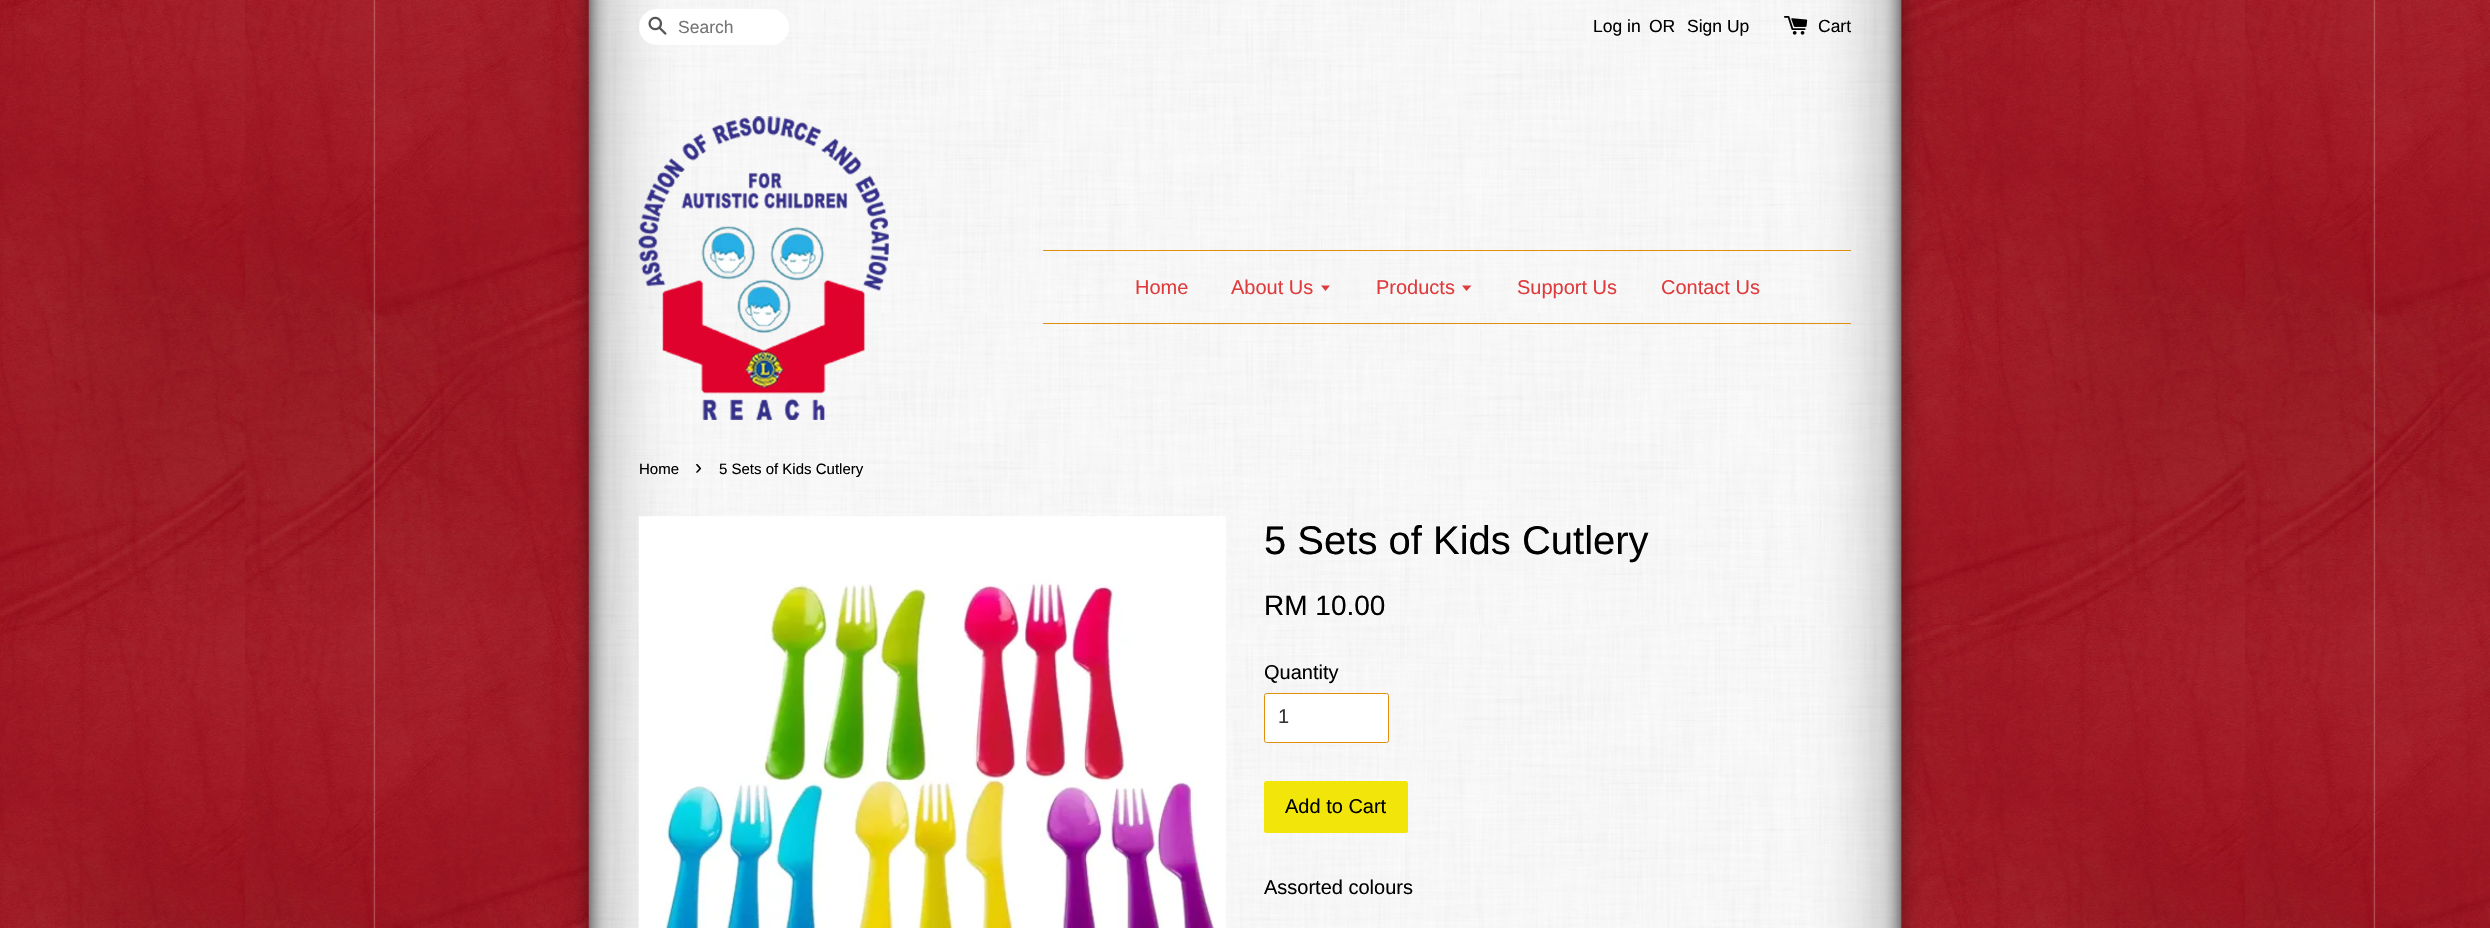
static SkFont makeFont(const char* family, int weight, float size, bool italic = false) {
  SkFontStyle style(weight, SkFontStyle::kNormal_Width,
    italic ? SkFontStyle::kItalic_Slant : SkFontStyle::kUpright_Slant);
  SkFont result(fontMgr->matchFamilyStyle(family, style), size);
  result.setSubpixel(true);
  return result;
}

static void text(SkCanvas* c, const char* s, float x, float y, const SkFont& font, SkColor color) {
  SkPaint ink(SkColor4f::FromColor(color));
  ink.setAntiAlias(true);
  c->drawString(s, x, y, font, ink);
}

static void box(SkCanvas* c, float l, float t, float r, float b, SkColor color) {
  SkPaint ink(SkColor4f::FromColor(color));
  ink.setAntiAlias(true);
  c->drawRect(SkRect::MakeLTRB(l, t, r, b), ink);
}

static void roundBox(SkCanvas* c, float l, float t, float r, float b, float radius, SkColor color) {
  SkPaint ink(SkColor4f::FromColor(color));
  ink.setAntiAlias(true);
  c->drawRoundRect(SkRect::MakeLTRB(l, t, r, b), radius, radius, ink);
}

static void picture(SkCanvas* c, const char* path, float l, float t, float r, float b) {
  auto image = SkImages::DeferredFromEncodedData(SkData::MakeFromFileName(path));
  c->drawImageRect(image, SkRect::MakeLTRB(l, t, r, b), SkSamplingOptions());
}

void draw(SkCanvas* c) {
  SkPaint paint;
  paint.setAntiAlias(true);
  c->clear(0xffffffff);
  picture(c, "img_01.png", 0, 0, 2490, 928);
  roundBox(c, 639, 9, 789, 45, 18, 0xffffffff);
  picture(c, "img_02.png", 648, 16, 667, 35);
  SkFont face1 = makeFont("Liberation Sans", 400, 17.5f);
  text(c, "Search", 678, 33, face1, 0xff757575);
  text(c, "Log in", 1593, 32, face1, 0xff000000);
  text(c, "OR", 1649, 32, face1, 0xff000000);
  text(c, "Sign Up", 1687, 32, face1, 0xff000000);
  picture(c, "img_03.png", 1784, 16, 1808, 35);
  text(c, "Cart", 1818, 32, face1, 0xff000000);
  picture(c, "img_04.png", 638, 116, 889, 420);
  box(c, 1043, 250, 1851, 251, 0xffe08f0d);
  box(c, 1043, 323, 1851, 324, 0xffe08f0d);
  SkFont face2 = makeFont("Liberation Sans", 400, 20);
  text(c, "Home", 1135, 294, face2, 0xffdf3b3d);
  text(c, "About Us", 1231, 294, face2, 0xffdf3b3d);
  paint.setColor(0xffdf3b3d);
  c->drawPath(SkPathBuilder().moveTo(1321, 285.5f).lineTo(1325.5f, 291).lineTo(1330, 285.5f).close().detach(), paint);
  text(c, "Products", 1376, 294, face2, 0xffdf3b3d);
  c->drawPath(SkPathBuilder().moveTo(1462, 285.5f).lineTo(1466.5f, 291).lineTo(1471.5f, 285.5f).close().detach(), paint);
  text(c, "Support Us", 1517, 294, face2, 0xffdf3b3d);
  text(c, "Contact Us", 1661, 294, face2, 0xffdf3b3d);
  SkFont face3 = makeFont("Liberation Sans", 400, 15);
  text(c, "Home", 639, 474, face3, 0xff000000);
  SkFont face4 = makeFont("Liberation Sans", 400, 21);
  text(c, "›", 695, 474, face4, 0xff000000);
  text(c, "5 Sets of Kids Cutlery", 719, 474, face3, 0xff000000);
  picture(c, "img_05.png", 638, 516, 1226, 928);
  SkFont face5 = makeFont("Liberation Sans", 400, 40);
  text(c, "5 Sets of Kids Cutlery", 1264, 554, face5, 0xff000000);
  SkFont face6 = makeFont("Liberation Sans", 400, 28);
  text(c, "RM 10.00", 1264, 615, face6, 0xff000000);
  text(c, "Quantity", 1264, 679, face2, 0xff000000);
  paint.setColor(0xffffffff);
  c->drawRoundRect(SkRect::MakeLTRB(1264.5f, 693.5f, 1388.5f, 742.5f), 2, 2, paint);
  paint.setStyle(SkPaint::kStroke_Style);
  paint.setStrokeWidth(1);
  paint.setColor(0xffe08f0d);
  c->drawRoundRect(SkRect::MakeLTRB(1264.5f, 693.5f, 1388.5f, 742.5f), 2, 2, paint);
  text(c, "1", 1278, 723, face2, 0xff333333);
  roundBox(c, 1264, 781, 1408, 833, 2.5f, 0xfff1e509);
  text(c, "Add to Cart", 1285, 813, face2, 0xff000000);
  text(c, "Assorted colours", 1264, 894, face2, 0xff000000);
}
